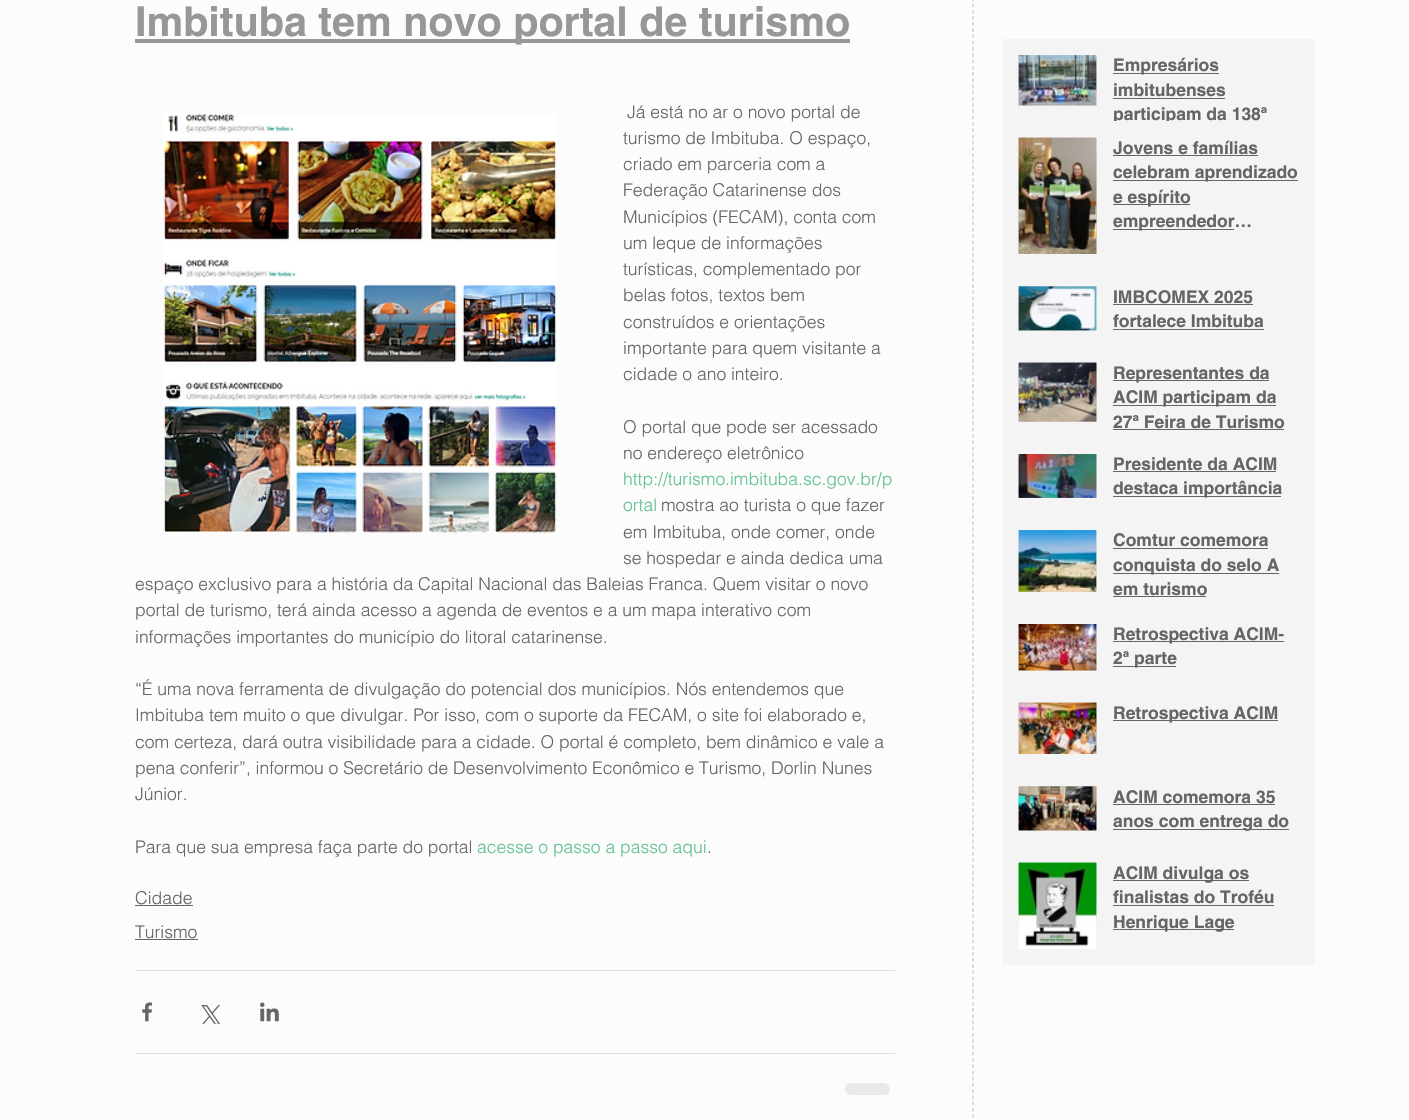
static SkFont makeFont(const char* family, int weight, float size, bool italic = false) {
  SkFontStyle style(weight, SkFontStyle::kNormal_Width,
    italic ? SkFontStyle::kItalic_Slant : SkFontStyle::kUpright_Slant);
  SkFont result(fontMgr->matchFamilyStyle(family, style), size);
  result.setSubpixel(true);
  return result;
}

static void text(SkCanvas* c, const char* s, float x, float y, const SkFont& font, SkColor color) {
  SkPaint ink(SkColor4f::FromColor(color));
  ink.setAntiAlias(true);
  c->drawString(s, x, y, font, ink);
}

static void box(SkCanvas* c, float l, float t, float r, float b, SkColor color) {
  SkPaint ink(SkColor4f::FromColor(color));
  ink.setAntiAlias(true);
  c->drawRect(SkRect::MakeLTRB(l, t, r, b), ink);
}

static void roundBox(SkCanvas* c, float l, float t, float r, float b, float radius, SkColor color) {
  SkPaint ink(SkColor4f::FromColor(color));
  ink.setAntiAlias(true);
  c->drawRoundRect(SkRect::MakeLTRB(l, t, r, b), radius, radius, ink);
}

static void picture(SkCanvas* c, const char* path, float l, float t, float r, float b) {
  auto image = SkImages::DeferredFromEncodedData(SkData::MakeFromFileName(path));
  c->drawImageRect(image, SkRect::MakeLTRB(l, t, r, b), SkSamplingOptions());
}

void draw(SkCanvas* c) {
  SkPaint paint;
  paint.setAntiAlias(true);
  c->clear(0xfffcfcfc);
  box(c, 135, 39, 850, 43, 0xff979797);
  SkFont face1 = makeFont("helvetica", 700, 41.25f);
  text(c, "Imbituba tem novo portal de turismo", 135, 36, face1, 0xff979797);
  picture(c, "img_01.png", 163, 114, 557, 533);
  SkFont face2 = makeFont("helvetica", 300, 17.5f);
  text(c, "Já está no ar o novo portal de", 627, 118, face2, 0xff656565);
  text(c, "turismo de Imbituba. O espaço,", 623, 144, face2, 0xff656565);
  text(c, "criado em parceria com a", 623, 170, face2, 0xff656565);
  text(c, "Federação Catarinense dos", 623, 196, face2, 0xff656565);
  text(c, "Municípios (FECAM), conta com", 623, 223, face2, 0xff656565);
  text(c, "um leque de informações", 623, 249, face2, 0xff656565);
  text(c, "turísticas, complementado por", 623, 275, face2, 0xff656565);
  text(c, "belas fotos, textos bem", 623, 301, face2, 0xff656565);
  text(c, "construídos e orientações", 623, 328, face2, 0xff656565);
  text(c, "importante para quem visitante a", 623, 354, face2, 0xff656565);
  text(c, "cidade o ano inteiro.", 623, 380, face2, 0xff656565);
  text(c, "O portal que pode ser acessado", 623, 433, face2, 0xff656565);
  text(c, "no endereço eletrônico", 623, 459, face2, 0xff656565);
  text(c, "http://turismo.imbituba.sc.gov.br/p", 623, 485, face2, 0xff61c291);
  text(c, "ortal", 623, 511, face2, 0xff61c291);
  text(c, "mostra ao turista o que fazer", 661, 511, face2, 0xff656565);
  text(c, "em Imbituba, onde comer, onde", 623, 538, face2, 0xff656565);
  text(c, "se hospedar e ainda dedica uma", 623, 564, face2, 0xff656565);
  text(c, "espaço exclusivo para a história da Capital Nacional das Baleias Franca. Quem visitar o novo", 135, 590, face2, 0xff656565);
  text(c, "portal de turismo, terá ainda acesso a agenda de eventos e a um mapa interativo com", 135, 616, face2, 0xff656565);
  text(c, "informações importantes do município do litoral catarinense.", 135, 643, face2, 0xff656565);
  text(c, "“É uma nova ferramenta de divulgação do potencial dos municípios. Nós entendemos que", 135, 695, face2, 0xff656565);
  text(c, "Imbituba tem muito o que divulgar. Por isso, com o suporte da FECAM, o site foi elaborado e,", 135, 721, face2, 0xff656565);
  text(c, "com certeza, dará outra visibilidade para a cidade. O portal é completo, bem dinâmico e vale a", 135, 748, face2, 0xff656565);
  text(c, "pena conferir”, informou o Secretário de Desenvolvimento Econômico e Turismo, Dorlin Nunes", 135, 774, face2, 0xff656565);
  text(c, "Júnior.", 135, 800, face2, 0xff656565);
  text(c, "Para que sua empresa faça parte do portal", 135, 853, face2, 0xff656565);
  text(c, "acesse o passo a passo aqui", 477, 853, face2, 0xff61c291);
  text(c, ".", 707, 853, face2, 0xff656565);
  text(c, "Cidade", 135, 904, face2, 0xff656565);
  box(c, 135, 905, 193, 906, 0xff656565);
  text(c, "Turismo", 135, 938, face2, 0xff656565);
  box(c, 135, 939, 198, 940, 0xff656565);
  box(c, 135, 970, 895, 971, 0xffdedede);
  picture(c, "img_02.png", 142, 1002, 152, 1022);
  picture(c, "img_03.png", 201, 1005, 220, 1024);
  picture(c, "img_04.png", 260, 1002, 279, 1022);
  box(c, 135, 1053, 895, 1054, 0xffdedede);
  roundBox(c, 845, 1083, 890, 1095, 6, 0xffeaeaea);
  paint.setStyle(SkPaint::kStroke_Style);
  paint.setStrokeWidth(1.2f);
  paint.setColor(0xffcacaca);
  paint.setPathEffect(SkDashPathEffect::Make({{3.75f, 2.49f}}, 0));
  c->drawPath(SkPathBuilder().moveTo(973, -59).lineTo(973, 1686).detach(), paint);
  paint.setPathEffect(nullptr);
  box(c, 1003, 39, 1315, 965, 0xfff4f4f4);
  picture(c, "img_05.png", 1018, 55, 1097, 106);
  picture(c, "img_06.png", 1018, 55, 1097, 106);
  box(c, 1113, 73, 1219, 74, 0xff656565);
  SkFont face3 = makeFont("helvetica", 700, 17.5f);
  text(c, "Empresários", 1113, 71, face3, 0xff656565);
  text(c, "imbitubenses", 1113, 96, face3, 0xff656565);
  box(c, 1113, 98, 1225, 99, 0xff656565);
  c->save();
  c->clipRect(SkRect::MakeLTRB(1113, 54, 1300, 121));
  text(c, "participam da 138ª", 1113, 120, face3, 0xff656565);
  c->restore();
  picture(c, "img_07.png", 1018, 137, 1097, 254);
  picture(c, "img_08.png", 1018, 137, 1097, 254);
  text(c, "Jovens e famílias", 1113, 154, face3, 0xff656565);
  box(c, 1113, 155, 1258, 156, 0xff656565);
  box(c, 1113, 180, 1298, 181, 0xff656565);
  text(c, "celebram aprendizado", 1113, 178, face3, 0xff656565);
  box(c, 1113, 204, 1190, 205, 0xff656565);
  text(c, "e espírito", 1113, 203, face3, 0xff656565);
  box(c, 1113, 229, 1234, 230, 0xff656565);
  text(c, "empreendedor…", 1113, 227, face3, 0xff656565);
  picture(c, "img_09.png", 1018, 286, 1097, 331);
  picture(c, "img_10.png", 1018, 286, 1097, 331);
  text(c, "IMBCOMEX 2025", 1113, 303, face3, 0xff656565);
  box(c, 1113, 304, 1253, 305, 0xff656565);
  c->save();
  c->clipRect(SkRect::MakeLTRB(1113, 285, 1300, 346));
  text(c, "fortalece Imbituba", 1113, 327, face3, 0xff656565);
  c->restore();
  box(c, 1113, 329, 1264, 330, 0xff656565);
  picture(c, "img_11.png", 1018, 362, 1097, 422);
  picture(c, "img_12.png", 1018, 362, 1097, 422);
  box(c, 1113, 380, 1269, 381, 0xff656565);
  text(c, "Representantes da", 1113, 379, face3, 0xff656565);
  box(c, 1113, 405, 1276, 406, 0xff656565);
  text(c, "ACIM participam da", 1113, 403, face3, 0xff656565);
  text(c, "27ª Feira de Turismo", 1113, 428, face3, 0xff656565);
  box(c, 1113, 429, 1284, 430, 0xff656565);
  picture(c, "img_13.png", 1018, 454, 1097, 498);
  picture(c, "img_14.png", 1018, 454, 1097, 498);
  text(c, "Presidente da ACIM", 1113, 470, face3, 0xff656565);
  box(c, 1113, 471, 1276, 472, 0xff656565);
  box(c, 1113, 496, 1281, 497, 0xff656565);
  text(c, "destaca importância", 1113, 494, face3, 0xff656565);
  picture(c, "img_15.png", 1018, 530, 1097, 592);
  picture(c, "img_16.png", 1018, 530, 1097, 592);
  text(c, "Comtur comemora", 1113, 546, face3, 0xff656565);
  box(c, 1113, 548, 1268, 549, 0xff656565);
  box(c, 1113, 573, 1279, 574, 0xff656565);
  text(c, "conquista do selo A", 1113, 571, face3, 0xff656565);
  text(c, "em turismo", 1113, 595, face3, 0xff656565);
  box(c, 1113, 596, 1206, 597, 0xff656565);
  picture(c, "img_17.png", 1018, 624, 1097, 671);
  picture(c, "img_18.png", 1018, 624, 1097, 671);
  box(c, 1113, 641, 1284, 642, 0xff656565);
  text(c, "Retrospectiva ACIM-", 1113, 640, face3, 0xff656565);
  box(c, 1113, 666, 1176, 667, 0xff656565);
  text(c, "2ª parte", 1113, 664, face3, 0xff656565);
  picture(c, "img_19.png", 1018, 702, 1097, 754);
  picture(c, "img_20.png", 1018, 702, 1097, 754);
  box(c, 1113, 720, 1278, 721, 0xff656565);
  text(c, "Retrospectiva ACIM", 1113, 719, face3, 0xff656565);
  picture(c, "img_21.png", 1018, 786, 1097, 831);
  picture(c, "img_22.png", 1018, 786, 1097, 831);
  text(c, "ACIM comemora 35", 1113, 803, face3, 0xff656565);
  box(c, 1113, 804, 1275, 805, 0xff656565);
  box(c, 1113, 829, 1289, 830, 0xff656565);
  text(c, "anos com entrega do", 1113, 827, face3, 0xff656565);
  picture(c, "img_23.png", 1018, 862, 1097, 949);
  picture(c, "img_24.png", 1018, 862, 1097, 949);
  box(c, 1113, 880, 1249, 881, 0xff656565);
  text(c, "ACIM divulga os", 1113, 879, face3, 0xff656565);
  c->save();
  c->clipRect(SkRect::MakeLTRB(1113, 861, 1300, 935));
  text(c, "finalistas do Troféu", 1113, 903, face3, 0xff656565);
  c->restore();
  box(c, 1113, 905, 1274, 906, 0xff656565);
  box(c, 1113, 929, 1234, 930, 0xff656565);
  text(c, "Henrique Lage", 1113, 928, face3, 0xff656565);
}
